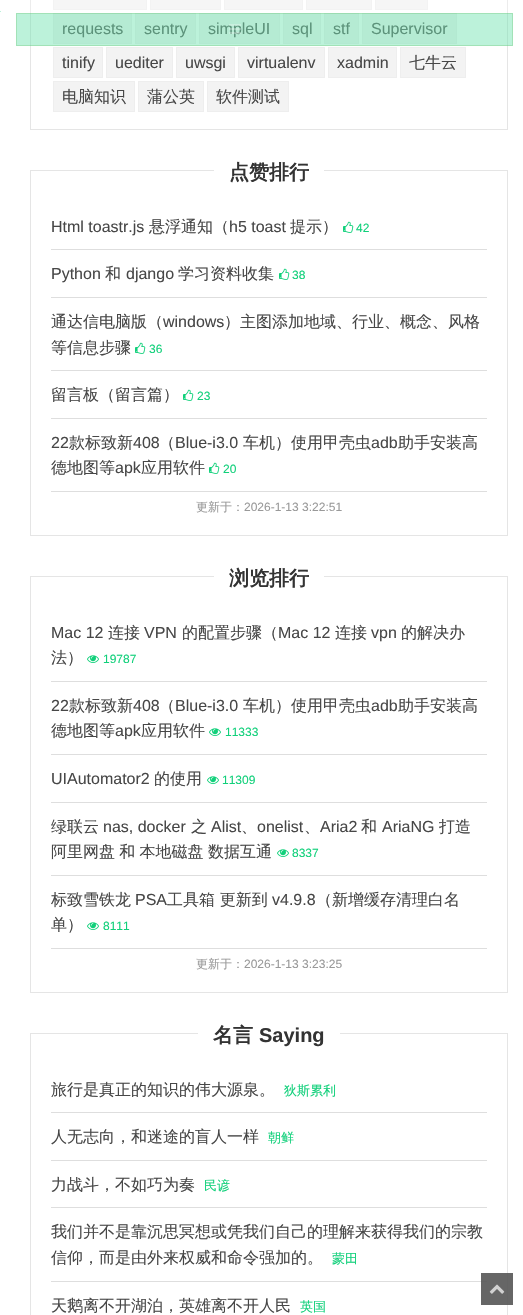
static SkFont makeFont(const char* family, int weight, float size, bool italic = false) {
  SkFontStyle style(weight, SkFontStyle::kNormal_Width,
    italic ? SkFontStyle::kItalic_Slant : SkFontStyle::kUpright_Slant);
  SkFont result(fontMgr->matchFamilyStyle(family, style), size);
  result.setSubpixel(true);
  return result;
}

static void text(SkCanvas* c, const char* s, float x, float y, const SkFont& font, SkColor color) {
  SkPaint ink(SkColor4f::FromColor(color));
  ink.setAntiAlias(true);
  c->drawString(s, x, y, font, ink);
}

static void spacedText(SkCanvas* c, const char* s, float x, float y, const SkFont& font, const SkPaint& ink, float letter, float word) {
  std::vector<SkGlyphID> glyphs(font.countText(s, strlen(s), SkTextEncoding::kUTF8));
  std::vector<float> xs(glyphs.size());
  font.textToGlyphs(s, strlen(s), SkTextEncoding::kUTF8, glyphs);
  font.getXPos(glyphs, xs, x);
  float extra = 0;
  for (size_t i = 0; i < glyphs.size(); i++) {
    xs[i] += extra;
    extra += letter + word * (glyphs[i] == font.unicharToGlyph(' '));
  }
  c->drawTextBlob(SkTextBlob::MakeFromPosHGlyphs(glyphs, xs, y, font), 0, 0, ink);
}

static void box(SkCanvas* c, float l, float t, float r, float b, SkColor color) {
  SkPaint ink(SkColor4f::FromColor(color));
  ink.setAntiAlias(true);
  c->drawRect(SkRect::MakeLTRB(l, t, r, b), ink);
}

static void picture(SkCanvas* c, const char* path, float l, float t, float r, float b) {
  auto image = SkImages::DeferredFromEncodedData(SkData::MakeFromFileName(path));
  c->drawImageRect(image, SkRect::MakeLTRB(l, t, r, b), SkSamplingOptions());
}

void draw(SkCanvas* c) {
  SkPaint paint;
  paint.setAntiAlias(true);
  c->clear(0xffffffff);
  paint.setStyle(SkPaint::kStroke_Style);
  paint.setStrokeWidth(1);
  paint.setColor(0xffe5e5e5);
  c->drawRect(SkRect::MakeLTRB(30.5f, -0.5f, 507.5f, 129.5f), paint);
  paint.setStyle(SkPaint::kFill_Style);
  paint.setColor(0xfff3f3f3);
  c->drawRect(SkRect::MakeLTRB(53.5f, -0.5f, 146.5f, 9.5f), paint);
  paint.setStyle(SkPaint::kStroke_Style);
  paint.setColor(0xffeeeeee);
  c->drawRect(SkRect::MakeLTRB(53.5f, -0.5f, 146.5f, 9.5f), paint);
  paint.setStyle(SkPaint::kFill_Style);
  paint.setColor(0xfff3f3f3);
  c->drawRect(SkRect::MakeLTRB(150.5f, -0.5f, 220.5f, 9.5f), paint);
  paint.setStyle(SkPaint::kStroke_Style);
  paint.setColor(0xffeeeeee);
  c->drawRect(SkRect::MakeLTRB(150.5f, -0.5f, 220.5f, 9.5f), paint);
  paint.setStyle(SkPaint::kFill_Style);
  paint.setColor(0xfff3f3f3);
  c->drawRect(SkRect::MakeLTRB(224.5f, -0.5f, 302.5f, 9.5f), paint);
  paint.setStyle(SkPaint::kStroke_Style);
  paint.setColor(0xffeeeeee);
  c->drawRect(SkRect::MakeLTRB(224.5f, -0.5f, 302.5f, 9.5f), paint);
  paint.setStyle(SkPaint::kFill_Style);
  paint.setColor(0xfff3f3f3);
  c->drawRect(SkRect::MakeLTRB(306.5f, -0.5f, 371.5f, 9.5f), paint);
  paint.setStyle(SkPaint::kStroke_Style);
  paint.setColor(0xffeeeeee);
  c->drawRect(SkRect::MakeLTRB(306.5f, -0.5f, 371.5f, 9.5f), paint);
  paint.setStyle(SkPaint::kFill_Style);
  paint.setColor(0xfff3f3f3);
  c->drawRect(SkRect::MakeLTRB(375.5f, -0.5f, 427.5f, 9.5f), paint);
  paint.setStyle(SkPaint::kStroke_Style);
  paint.setColor(0xffeeeeee);
  c->drawRect(SkRect::MakeLTRB(375.5f, -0.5f, 427.5f, 9.5f), paint);
  paint.setStyle(SkPaint::kFill_Style);
  paint.setColor(0xfff3f3f3);
  c->drawRect(SkRect::MakeLTRB(53.5f, 13.5f, 131.5f, 43.5f), paint);
  paint.setStyle(SkPaint::kStroke_Style);
  paint.setColor(0xffeeeeee);
  c->drawRect(SkRect::MakeLTRB(53.5f, 13.5f, 131.5f, 43.5f), paint);
  SkFont face1 = makeFont("Liberation Sans", 400, 16);
  text(c, "requests", 62, 34, face1, 0xff474747);
  paint.setStyle(SkPaint::kFill_Style);
  paint.setColor(0xfff3f3f3);
  c->drawRect(SkRect::MakeLTRB(135.5f, 13.5f, 195.5f, 43.5f), paint);
  paint.setStyle(SkPaint::kStroke_Style);
  paint.setColor(0xffeeeeee);
  c->drawRect(SkRect::MakeLTRB(135.5f, 13.5f, 195.5f, 43.5f), paint);
  text(c, "sentry", 144, 34, face1, 0xff474747);
  paint.setStyle(SkPaint::kFill_Style);
  paint.setColor(0xfff3f3f3);
  c->drawRect(SkRect::MakeLTRB(199.5f, 13.5f, 279.5f, 43.5f), paint);
  paint.setStyle(SkPaint::kStroke_Style);
  paint.setColor(0xffeeeeee);
  c->drawRect(SkRect::MakeLTRB(199.5f, 13.5f, 279.5f, 43.5f), paint);
  text(c, "simpleUI", 208, 34, face1, 0xff474747);
  paint.setStyle(SkPaint::kFill_Style);
  paint.setColor(0xfff3f3f3);
  c->drawRect(SkRect::MakeLTRB(283.5f, 13.5f, 320.5f, 43.5f), paint);
  paint.setStyle(SkPaint::kStroke_Style);
  paint.setColor(0xffeeeeee);
  c->drawRect(SkRect::MakeLTRB(283.5f, 13.5f, 320.5f, 43.5f), paint);
  text(c, "sql", 292, 34, face1, 0xff474747);
  paint.setStyle(SkPaint::kFill_Style);
  paint.setColor(0xfff3f3f3);
  c->drawRect(SkRect::MakeLTRB(324.5f, 13.5f, 358.5f, 43.5f), paint);
  paint.setStyle(SkPaint::kStroke_Style);
  paint.setColor(0xffeeeeee);
  c->drawRect(SkRect::MakeLTRB(324.5f, 13.5f, 358.5f, 43.5f), paint);
  text(c, "stf", 333, 34, face1, 0xff474747);
  paint.setStyle(SkPaint::kFill_Style);
  paint.setColor(0xfff3f3f3);
  c->drawRect(SkRect::MakeLTRB(362.5f, 13.5f, 456.5f, 43.5f), paint);
  paint.setStyle(SkPaint::kStroke_Style);
  paint.setColor(0xffeeeeee);
  c->drawRect(SkRect::MakeLTRB(362.5f, 13.5f, 456.5f, 43.5f), paint);
  text(c, "Supervisor", 371, 34, face1, 0xff474747);
  box(c, 30, 0, 508, 46, 0x47ffffff);
  box(c, 0, 11, 1, 12, 0xffbbf2d9);
  box(c, 16, 13, 513, 46, 0x4710d07a);
  paint.setColor(0x475eb95e);
  c->drawRect(SkRect::MakeLTRB(16.5f, 13.5f, 512.5f, 45.5f), paint);
  picture(c, "img_01.png", 229, 24, 241, 34);
  paint.setStyle(SkPaint::kFill_Style);
  paint.setColor(0xfff3f3f3);
  c->drawRect(SkRect::MakeLTRB(53.5f, 47.5f, 102.5f, 77.5f), paint);
  paint.setStyle(SkPaint::kStroke_Style);
  paint.setColor(0xffeeeeee);
  c->drawRect(SkRect::MakeLTRB(53.5f, 47.5f, 102.5f, 77.5f), paint);
  text(c, "tinify", 62, 68, face1, 0xff474747);
  paint.setStyle(SkPaint::kFill_Style);
  paint.setColor(0xfff3f3f3);
  c->drawRect(SkRect::MakeLTRB(106.5f, 47.5f, 172.5f, 77.5f), paint);
  paint.setStyle(SkPaint::kStroke_Style);
  paint.setColor(0xffeeeeee);
  c->drawRect(SkRect::MakeLTRB(106.5f, 47.5f, 172.5f, 77.5f), paint);
  text(c, "uediter", 115, 68, face1, 0xff474747);
  paint.setStyle(SkPaint::kFill_Style);
  paint.setColor(0xfff3f3f3);
  c->drawRect(SkRect::MakeLTRB(176.5f, 47.5f, 234.5f, 77.5f), paint);
  paint.setStyle(SkPaint::kStroke_Style);
  paint.setColor(0xffeeeeee);
  c->drawRect(SkRect::MakeLTRB(176.5f, 47.5f, 234.5f, 77.5f), paint);
  text(c, "uwsgi", 185, 68, face1, 0xff474747);
  paint.setStyle(SkPaint::kFill_Style);
  paint.setColor(0xfff3f3f3);
  c->drawRect(SkRect::MakeLTRB(238.5f, 47.5f, 324.5f, 77.5f), paint);
  paint.setStyle(SkPaint::kStroke_Style);
  paint.setColor(0xffeeeeee);
  c->drawRect(SkRect::MakeLTRB(238.5f, 47.5f, 324.5f, 77.5f), paint);
  text(c, "virtualenv", 247, 68, face1, 0xff474747);
  paint.setStyle(SkPaint::kFill_Style);
  paint.setColor(0xfff3f3f3);
  c->drawRect(SkRect::MakeLTRB(328.5f, 47.5f, 396.5f, 77.5f), paint);
  paint.setStyle(SkPaint::kStroke_Style);
  paint.setColor(0xffeeeeee);
  c->drawRect(SkRect::MakeLTRB(328.5f, 47.5f, 396.5f, 77.5f), paint);
  text(c, "xadmin", 337, 68, face1, 0xff474747);
  paint.setStyle(SkPaint::kFill_Style);
  paint.setColor(0xfff3f3f3);
  c->drawRect(SkRect::MakeLTRB(400.5f, 47.5f, 465.5f, 77.5f), paint);
  paint.setStyle(SkPaint::kStroke_Style);
  paint.setColor(0xffeeeeee);
  c->drawRect(SkRect::MakeLTRB(400.5f, 47.5f, 465.5f, 77.5f), paint);
  SkFont face2 = makeFont("WenQuanYi Zen Hei", 500, 16);
  text(c, "七牛云", 409, 68, face2, 0xff474747);
  paint.setStyle(SkPaint::kFill_Style);
  paint.setColor(0xfff3f3f3);
  c->drawRect(SkRect::MakeLTRB(53.5f, 81.5f, 134.5f, 111.5f), paint);
  paint.setStyle(SkPaint::kStroke_Style);
  paint.setColor(0xffeeeeee);
  c->drawRect(SkRect::MakeLTRB(53.5f, 81.5f, 134.5f, 111.5f), paint);
  text(c, "电脑知识", 62, 102, face2, 0xff474747);
  paint.setStyle(SkPaint::kFill_Style);
  paint.setColor(0xfff3f3f3);
  c->drawRect(SkRect::MakeLTRB(138.5f, 81.5f, 203.5f, 111.5f), paint);
  paint.setStyle(SkPaint::kStroke_Style);
  paint.setColor(0xffeeeeee);
  c->drawRect(SkRect::MakeLTRB(138.5f, 81.5f, 203.5f, 111.5f), paint);
  text(c, "蒲公英", 147, 102, face2, 0xff474747);
  paint.setStyle(SkPaint::kFill_Style);
  paint.setColor(0xfff3f3f3);
  c->drawRect(SkRect::MakeLTRB(207.5f, 81.5f, 288.5f, 111.5f), paint);
  paint.setStyle(SkPaint::kStroke_Style);
  paint.setColor(0xffeeeeee);
  c->drawRect(SkRect::MakeLTRB(207.5f, 81.5f, 288.5f, 111.5f), paint);
  text(c, "软件测试", 216, 102, face2, 0xff474747);
  paint.setColor(0xffe5e5e5);
  c->drawRect(SkRect::MakeLTRB(30.5f, 170.5f, 507.5f, 535.5f), paint);
  box(c, 214, 170, 324, 171, 0xffffffff);
  SkFont face3 = makeFont("WenQuanYi Zen Hei", 700, 20);
  text(c, "点赞排行", 229, 179, face3, 0xff333333);
  box(c, 51, 249, 487, 250, 0xffdedede);
  text(c, "Html toastr.js", 51, 232, face1, 0xff474747);
  text(c, "悬浮通知（", 149, 232, face2, 0xff474747);
  text(c, "h5 toast", 229, 232, face1, 0xff474747);
  text(c, "提示）", 290, 232, face2, 0xff474747);
  picture(c, "img_02.png", 343, 221, 354, 233);
  SkFont face4 = makeFont("Liberation Sans", 400, 12);
  text(c, "42", 356, 232, face4, 0xff10d07a);
  box(c, 51, 297, 487, 298, 0xffdedede);
  text(c, "Python", 51, 279, face1, 0xff474747);
  text(c, "和", 105, 279, face2, 0xff474747);
  text(c, "django", 126, 279, face1, 0xff474747);
  text(c, "学习资料收集", 178, 279, face2, 0xff474747);
  picture(c, "img_02.png", 279, 268, 290, 280);
  text(c, "38", 292, 279, face4, 0xff10d07a);
  box(c, 51, 370, 487, 371, 0xffdedede);
  text(c, "通达信电脑版（", 51, 327, face2, 0xff474747);
  text(c, "windows", 163, 327, face1, 0xff474747);
  text(c, "）主图添加地域、行业、概念、风格", 224, 327, face2, 0xff474747);
  text(c, "等信息步骤", 51, 353, face2, 0xff474747);
  picture(c, "img_02.png", 135, 342, 146, 354);
  text(c, "36", 149, 353, face4, 0xff10d07a);
  box(c, 51, 418, 487, 419, 0xffdedede);
  text(c, "留言板（留言篇）", 51, 400, face2, 0xff474747);
  picture(c, "img_02.png", 183, 389, 194, 401);
  text(c, "23", 197, 400, face4, 0xff10d07a);
  box(c, 51, 491, 487, 492, 0xffdedede);
  text(c, "22", 51, 448, face1, 0xff474747);
  text(c, "款标致新", 69, 448, face2, 0xff474747);
  text(c, "408", 133, 448, face1, 0xff474747);
  text(c, "（", 159, 448, face2, 0xff474747);
  text(c, "Blue-i3.0", 175, 448, face1, 0xff474747);
  text(c, "车机）使用甲壳虫", 243, 448, face2, 0xff474747);
  text(c, "adb", 371, 448, face1, 0xff474747);
  text(c, "助手安装高", 398, 448, face2, 0xff474747);
  text(c, "德地图等", 51, 473, face2, 0xff474747);
  text(c, "apk", 115, 473, face1, 0xff474747);
  text(c, "应用软件", 141, 473, face2, 0xff474747);
  picture(c, "img_02.png", 209, 462, 220, 474);
  text(c, "20", 223, 473, face4, 0xff10d07a);
  SkFont face5 = makeFont("WenQuanYi Zen Hei", 500, 12);
  text(c, "更新于：", 196, 511, face5, 0xff999999);
  text(c, "2026-1-13 3:22:51", 244, 511, face4, 0xff999999);
  c->drawRect(SkRect::MakeLTRB(30.5f, 576.5f, 507.5f, 992.5f), paint);
  box(c, 214, 576, 324, 577, 0xffffffff);
  text(c, "浏览排行", 229, 585, face3, 0xff333333);
  box(c, 51, 681, 487, 682, 0xffdedede);
  text(c, "Mac 12", 51, 638, face1, 0xff474747);
  text(c, "连接", 108, 638, face2, 0xff474747);
  text(c, "VPN", 144, 638, face1, 0xff474747);
  text(c, "的配置步骤（", 182, 638, face2, 0xff474747);
  text(c, "Mac 12", 278, 638, face1, 0xff474747);
  text(c, "连接", 335, 638, face2, 0xff474747);
  text(c, "vpn", 371, 638, face1, 0xff474747);
  text(c, "的解决办", 401, 638, face2, 0xff474747);
  text(c, "法）", 51, 663, face2, 0xff474747);
  picture(c, "img_03.png", 87, 655, 99, 663);
  text(c, "19787", 103, 663, face4, 0xff10d07a);
  box(c, 51, 754, 487, 755, 0xffdedede);
  text(c, "22", 51, 711, face1, 0xff474747);
  text(c, "款标致新", 69, 711, face2, 0xff474747);
  text(c, "408", 133, 711, face1, 0xff474747);
  text(c, "（", 159, 711, face2, 0xff474747);
  text(c, "Blue-i3.0", 175, 711, face1, 0xff474747);
  text(c, "车机）使用甲壳虫", 243, 711, face2, 0xff474747);
  text(c, "adb", 371, 711, face1, 0xff474747);
  text(c, "助手安装高", 398, 711, face2, 0xff474747);
  text(c, "德地图等", 51, 736, face2, 0xff474747);
  text(c, "apk", 115, 736, face1, 0xff474747);
  text(c, "应用软件", 141, 736, face2, 0xff474747);
  picture(c, "img_03.png", 209, 728, 221, 736);
  text(c, "11333", 225, 736, face4, 0xff10d07a);
  box(c, 51, 802, 487, 803, 0xffdedede);
  text(c, "UIAutomator2", 51, 784, face1, 0xff474747);
  text(c, "的使用", 154, 784, face2, 0xff474747);
  picture(c, "img_03.png", 207, 776, 219, 784);
  text(c, "11309", 222, 784, face4, 0xff10d07a);
  box(c, 51, 875, 487, 876, 0xffdedede);
  text(c, "绿联云", 51, 832, face2, 0xff474747);
  text(c, "nas, docker", 103, 832, face1, 0xff474747);
  text(c, "之", 191, 832, face2, 0xff474747);
  text(c, "Alist", 211, 832, face1, 0xff474747);
  text(c, "、", 241, 832, face2, 0xff474747);
  text(c, "onelist", 257, 832, face1, 0xff474747);
  text(c, "、", 304, 832, face2, 0xff474747);
  text(c, "Aria2", 320, 832, face1, 0xff474747);
  text(c, "和", 361, 832, face2, 0xff474747);
  text(c, "AriaNG", 382, 832, face1, 0xff474747);
  text(c, "打造", 439, 832, face2, 0xff474747);
  paint.setStyle(SkPaint::kFill_Style);
  paint.setColor(0xff474747);
  spacedText(c, "阿里网盘 和 本地磁盘 数据互通", 51, 857, face2, paint, 0, -0.5f);
  picture(c, "img_03.png", 277, 849, 289, 857);
  text(c, "8337", 292, 857, face4, 0xff10d07a);
  box(c, 51, 948, 487, 949, 0xffdedede);
  text(c, "标致雪铁龙", 51, 905, face2, 0xff474747);
  text(c, "PSA", 135, 905, face1, 0xff474747);
  text(c, "工具箱 更新到", 167, 905, face2, 0xff474747);
  text(c, "v4.9.8", 272, 905, face1, 0xff474747);
  text(c, "（新增缓存清理白名", 316, 905, face2, 0xff474747);
  text(c, "单）", 51, 930, face2, 0xff474747);
  picture(c, "img_03.png", 87, 922, 99, 930);
  text(c, "8111", 103, 930, face4, 0xff10d07a);
  text(c, "更新于：", 196, 968, face5, 0xff999999);
  text(c, "2026-1-13 3:23:25", 244, 968, face4, 0xff999999);
  paint.setStyle(SkPaint::kStroke_Style);
  paint.setColor(0xffe5e5e5);
  c->drawRect(SkRect::MakeLTRB(30.5f, 1033.5f, 507.5f, 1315.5f), paint);
  box(c, 198, 1033, 340, 1034, 0xffffffff);
  text(c, "名言", 213, 1042, face3, 0xff333333);
  SkFont face6 = makeFont("Liberation Sans", 700, 20);
  text(c, "Saying", 259, 1042, face6, 0xff333333);
  box(c, 51, 1112, 487, 1113, 0xffdedede);
  text(c, "旅行是真正的知识的伟大源泉。", 51, 1095, face2, 0xff474747);
  SkFont face7 = makeFont("WenQuanYi Zen Hei", 500, 13);
  text(c, "狄斯累利", 284, 1095, face7, 0xff10d07a);
  box(c, 51, 1160, 487, 1161, 0xffdedede);
  text(c, "人无志向，和迷途的盲人一样", 51, 1142, face2, 0xff474747);
  text(c, "朝鲜", 268, 1142, face7, 0xff10d07a);
  box(c, 51, 1207, 487, 1208, 0xffdedede);
  text(c, "力战斗，不如巧为奏", 51, 1190, face2, 0xff474747);
  text(c, "民谚", 204, 1190, face7, 0xff10d07a);
  box(c, 51, 1281, 487, 1282, 0xffdedede);
  text(c, "我们并不是靠沉思冥想或凭我们自己的理解来获得我们的宗教", 51, 1237, face2, 0xff474747);
  text(c, "信仰，而是由外来权威和命令强加的。", 51, 1263, face2, 0xff474747);
  text(c, "蒙田", 332, 1263, face7, 0xff10d07a);
  text(c, "天鹅离不开湖泊，英雄离不开人民", 51, 1311, face2, 0xff474747);
  text(c, "英国", 300, 1311, face7, 0xff10d07a);
  box(c, 481, 1273, 513, 1305, 0xe6555555);
  picture(c, "img_04.png", 489, 1284, 505, 1294);
}
